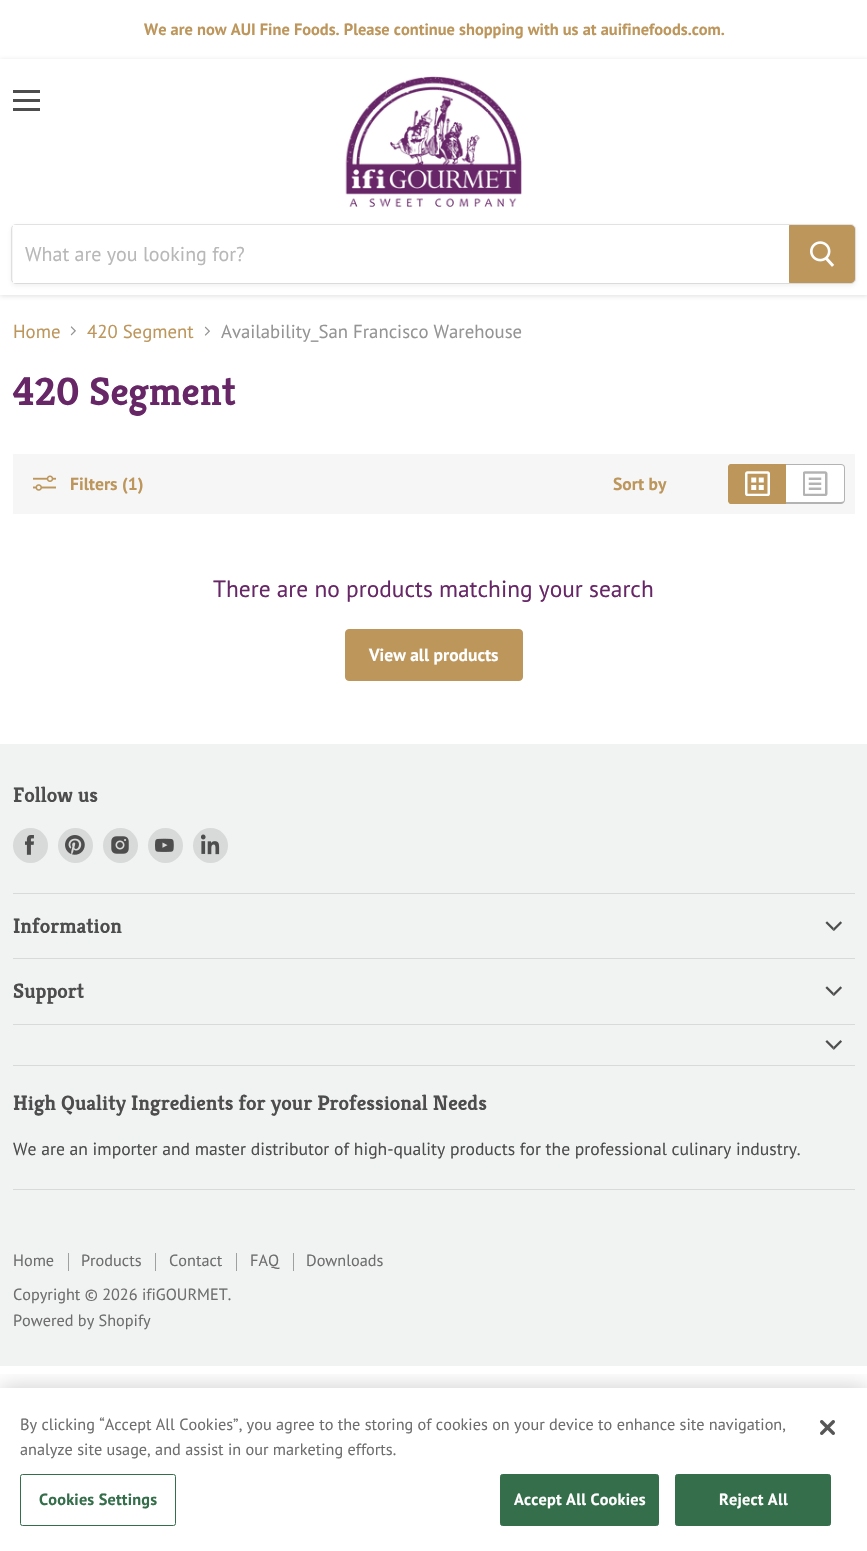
static SkFont makeFont(const char* family, int weight, float size, bool italic = false) {
  SkFontStyle style(weight, SkFontStyle::kNormal_Width,
    italic ? SkFontStyle::kItalic_Slant : SkFontStyle::kUpright_Slant);
  SkFont result(fontMgr->matchFamilyStyle(family, style), size);
  result.setSubpixel(true);
  return result;
}

static void text(SkCanvas* c, const char* s, float x, float y, const SkFont& font, SkColor color) {
  SkPaint ink(SkColor4f::FromColor(color));
  ink.setAntiAlias(true);
  c->drawString(s, x, y, font, ink);
}

static void spacedText(SkCanvas* c, const char* s, float x, float y, const SkFont& font, const SkPaint& ink, float letter, float word) {
  std::vector<SkGlyphID> glyphs(font.countText(s, strlen(s), SkTextEncoding::kUTF8));
  std::vector<float> xs(glyphs.size());
  font.textToGlyphs(s, strlen(s), SkTextEncoding::kUTF8, glyphs);
  font.getXPos(glyphs, xs, x);
  float extra = 0;
  for (size_t i = 0; i < glyphs.size(); i++) {
    xs[i] += extra;
    extra += letter + word * (glyphs[i] == font.unicharToGlyph(' '));
  }
  c->drawTextBlob(SkTextBlob::MakeFromPosHGlyphs(glyphs, xs, y, font), 0, 0, ink);
}

static void box(SkCanvas* c, float l, float t, float r, float b, SkColor color) {
  SkPaint ink(SkColor4f::FromColor(color));
  ink.setAntiAlias(true);
  c->drawRect(SkRect::MakeLTRB(l, t, r, b), ink);
}

static void picture(SkCanvas* c, const char* path, float l, float t, float r, float b) {
  auto image = SkImages::DeferredFromEncodedData(SkData::MakeFromFileName(path));
  c->drawImageRect(image, SkRect::MakeLTRB(l, t, r, b), SkSamplingOptions());
}

void draw(SkCanvas* c) {
  SkPaint paint;
  paint.setAntiAlias(true);
  c->clear(0xffffffff);
  SkFont face1 = makeFont("PT Sans", 700, 16.4f);
  text(c, "We are now AUI Fine Foods. Please continue shopping with us at auifinefoods.com.", 144, 35, face1, 0xffbd965c);
  c->save();
  c->clipPath(SkPathBuilder(SkPathFillType::kEvenOdd).moveTo(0, 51).lineTo(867, 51).lineTo(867, 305).lineTo(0, 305).close().moveTo(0, 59).lineTo(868, 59).lineTo(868, 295).lineTo(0, 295).close().detach(), true);
  paint.setColor(0x407f7f7f);
  paint.setMaskFilter(SkMaskFilter::MakeBlur(kNormal_SkBlurStyle, 2.5f));
  c->drawRect(SkRect::MakeLTRB(0, 60, 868, 296), paint);
  paint.setMaskFilter(nullptr);
  c->restore();
  box(c, 13, 90, 40, 93, 0xff4d4d4d);
  box(c, 13, 99, 40, 102, 0xff4d4d4d);
  box(c, 13, 108, 40, 111, 0xff4d4d4d);
  picture(c, "img_01.png", 345, 76, 522, 207);
  paint.setColor(0x1c7f7f7f);
  paint.setMaskFilter(SkMaskFilter::MakeBlur(kNormal_SkBlurStyle, 2));
  c->drawRoundRect(SkRect::MakeLTRB(11, 226, 856, 286), 5, 5, paint);
  paint.setMaskFilter(nullptr);
  paint.setStyle(SkPaint::kStroke_Style);
  paint.setStrokeWidth(1);
  paint.setColor(0x337f7f7f);
  c->drawRoundRect(SkRect::MakeLTRB(11.5f, 224.5f, 855.5f, 283.5f), 4.5f, 4.5f, paint);
  box(c, 13, 225, 789, 283, 0xffffffff);
  SkFont face2 = makeFont("PT Sans", 400, 20);
  text(c, "What are you looking for?", 25, 261, face2, 0xffb8b8b8);
  paint.setStyle(SkPaint::kFill_Style);
  paint.setColor(0xffbd965c);
  c->drawPath(SkPathBuilder().moveTo(789.5f, 225.5f).lineTo(851, 225.5f).cubicTo(853, 225.5f, 854.5f, 227, 854.5f, 229).lineTo(854.5f, 279).cubicTo(854.5f, 281, 853, 282.5f, 851, 282.5f).lineTo(789.5f, 282.5f).close().detach(), paint);
  paint.setStyle(SkPaint::kStroke_Style);
  c->drawPath(SkPathBuilder().moveTo(789.5f, 225.5f).lineTo(851, 225.5f).cubicTo(853, 225.5f, 854.5f, 227, 854.5f, 229).lineTo(854.5f, 279).cubicTo(854.5f, 281, 853, 282.5f, 851, 282.5f).lineTo(789.5f, 282.5f).close().detach(), paint);
  picture(c, "img_02.png", 810, 241, 835, 267);
  SkFont face3 = makeFont("PT Sans", 400, 18.75f);
  text(c, "Home", 13, 338, face3, 0xffbd965c);
  picture(c, "img_03.png", 70, 326, 76, 336);
  text(c, "420 Segment", 87, 338, face3, 0xffbd965c);
  picture(c, "img_04.png", 204, 326, 210, 336);
  text(c, "Availability_San Francisco Warehouse", 221, 338, face3, 0xff949494);
  SkFont face4 = makeFont("Kreon", 700, 40);
  text(c, "420 Segment", 13, 405, face4, 0xff672767);
  box(c, 13, 454, 855, 514, 0xfff6f6f6);
  picture(c, "img_05.png", 33, 475, 56, 491);
  SkFont face5 = makeFont("PT Sans", 700, 17.6f);
  text(c, "Filters (1)", 70, 490, face5, 0xffbd965c);
  text(c, "Sort by", 613, 490, face5, 0xffbd965c);
  paint.setStyle(SkPaint::kFill_Style);
  c->drawPath(SkPathBuilder().moveTo(732, 464).lineTo(786, 464).lineTo(786, 504).lineTo(732, 504).cubicTo(730, 504, 728, 502, 728, 500).lineTo(728, 468).cubicTo(728, 466, 730, 464, 732, 464).close().detach(), paint);
  c->drawPath(SkPathBuilder(SkPathFillType::kEvenOdd).moveTo(731, 464).lineTo(786, 464).lineTo(786, 504).lineTo(731, 504).cubicTo(729, 504, 728, 502, 728, 500).lineTo(728, 468).cubicTo(728, 465, 729, 464, 731, 464).close().moveTo(731, 465).lineTo(786, 465).lineTo(786, 502).lineTo(731, 502).cubicTo(730, 502, 729, 501, 729, 500).lineTo(729, 468).cubicTo(729, 466, 730, 465, 731, 465).close().detach(), paint);
  picture(c, "img_06.png", 745, 471, 770, 496);
  paint.setColor(0xffffffff);
  c->drawPath(SkPathBuilder().moveTo(786, 464).lineTo(841, 464).cubicTo(843, 464, 845, 466, 845, 468).lineTo(845, 500).cubicTo(845, 502, 843, 504, 841, 504).lineTo(786, 504).close().detach(), paint);
  paint.setColor(0xffb3b3b3);
  c->drawPath(SkPathBuilder(SkPathFillType::kEvenOdd).moveTo(786, 464).lineTo(841, 464).cubicTo(843, 464, 845, 465, 845, 468).lineTo(845, 500).cubicTo(845, 502, 843, 504, 841, 504).lineTo(786, 504).close().moveTo(786, 465).lineTo(841, 465).cubicTo(843, 465, 844, 466, 844, 468).lineTo(844, 500).cubicTo(844, 501, 843, 502, 841, 502).lineTo(786, 502).close().detach(), paint);
  picture(c, "img_07.png", 803, 471, 828, 496);
  SkFont face6 = makeFont("PT Sans", 400, 23.4f);
  text(c, "There are no products matching your search", 213, 597, face6, 0xff672767);
  paint.setColor(0xffbd965c);
  c->drawRoundRect(SkRect::MakeLTRB(345.5f, 629.5f, 522.5f, 680.5f), 3.5f, 3.5f, paint);
  paint.setStyle(SkPaint::kStroke_Style);
  c->drawRoundRect(SkRect::MakeLTRB(345.5f, 629.5f, 522.5f, 680.5f), 3.5f, 3.5f, paint);
  SkFont face7 = makeFont("PT Sans", 700, 17.5f);
  text(c, "View all products", 369, 661, face7, 0xffffffff);
  box(c, 0, 744, 867, 1366, 0xfff1f2f2);
  box(c, 13, 893, 855, 894, 0xffd8d9d9);
  SkFont face8 = makeFont("Kreon", 700, 21.1f);
  text(c, "Follow us", 13, 802, face8, 0xff4d4d4d);
  paint.setStyle(SkPaint::kFill_Style);
  paint.setColor(0xffd8d9d9);
  c->drawCircle(30.5f, 845.5f, 17.5f, paint);
  picture(c, "img_08.png", 25, 835, 34, 855);
  c->drawCircle(75.5f, 845.5f, 17.5f, paint);
  picture(c, "img_09.png", 65, 835, 85, 855);
  c->drawCircle(120.5f, 845.5f, 17.5f, paint);
  picture(c, "img_10.png", 111, 836, 129, 854);
  c->drawCircle(165.5f, 845.5f, 17.5f, paint);
  picture(c, "img_11.png", 155, 838, 174, 852);
  c->drawCircle(210.5f, 845.5f, 17.5f, paint);
  picture(c, "img_12.png", 201, 834, 220, 855);
  box(c, 13, 958, 855, 959, 0xffd8d9d9);
  text(c, "Information", 13, 933, face8, 0xff4d4d4d);
  picture(c, "img_13.png", 825, 921, 842, 931);
  box(c, 13, 1024, 855, 1025, 0xffd8d9d9);
  text(c, "Support", 13, 998, face8, 0xff4d4d4d);
  picture(c, "img_13.png", 825, 986, 842, 996);
  box(c, 13, 1065, 855, 1066, 0xffd8d9d9);
  picture(c, "img_14.png", 825, 1040, 842, 1050);
  box(c, 13, 1189, 855, 1190, 0xffd8d9d9);
  text(c, "High Quality Ingredients for your Professional Needs", 13, 1110, face8, 0xff4d4d4d);
  SkFont face9 = makeFont("PT Sans", 400, 17.6f);
  text(c, "We are an importer and master distributor of high-quality products for the professional culinary industry.", 13, 1155, face9, 0xff4d4d4d);
  box(c, 68, 1253, 69, 1271, 0xff9fa0a0);
  SkFont face10 = makeFont("PT Sans", 400, 16.25f);
  text(c, "Home", 13, 1266, face10, 0xff6e6e6e);
  box(c, 155, 1253, 156, 1271, 0xff9fa0a0);
  text(c, "Products", 81, 1266, face10, 0xff6e6e6e);
  box(c, 236, 1253, 237, 1271, 0xff9fa0a0);
  text(c, "Contact", 169, 1266, face10, 0xff6e6e6e);
  box(c, 293, 1253, 294, 1271, 0xff9fa0a0);
  text(c, "FAQ", 250, 1266, face10, 0xff6e6e6e);
  text(c, "Downloads", 306, 1266, face10, 0xff6e6e6e);
  text(c, "Copyright © 2026 ifiGOURMET.", 13, 1300, face10, 0xff6e6e6e);
  text(c, "Powered by Shopify", 13, 1326, face10, 0xff6e6e6e);
  c->save();
  c->clipRect(SkRect::MakeLTRB(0, 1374, 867, 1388));
  paint.setColor(0x33000000);
  paint.setMaskFilter(SkMaskFilter::MakeBlur(kNormal_SkBlurStyle, 11));
  c->drawRect(SkRect::MakeLTRB(0, 1388, 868, 1551), paint);
  paint.setMaskFilter(nullptr);
  c->restore();
  text(c, "By clicking “Accept All Cookies”, you agree to the storing of cookies on your device to enhance site navigation,", 20, 1430, face10, 0xff6e6e6e);
  text(c, "analyze site usage, and assist in our marketing efforts.", 20, 1455, face10, 0xff6e6e6e);
  paint.setStyle(SkPaint::kStroke_Style);
  paint.setColor(0xff346e4a);
  c->drawRoundRect(SkRect::MakeLTRB(20.5f, 1474.5f, 175.5f, 1525.5f), 2, 2, paint);
  SkFont face11 = makeFont("PT Sans", 700, 16.25f);
  paint.setStyle(SkPaint::kFill_Style);
  spacedText(c, "Cookies Settings", 39, 1505, face11, paint, 0.2f, 0);
  c->drawRoundRect(SkRect::MakeLTRB(500.5f, 1474.5f, 658.5f, 1525.5f), 2, 2, paint);
  paint.setStyle(SkPaint::kStroke_Style);
  c->drawRoundRect(SkRect::MakeLTRB(500.5f, 1474.5f, 658.5f, 1525.5f), 2, 2, paint);
  paint.setStyle(SkPaint::kFill_Style);
  paint.setColor(0xffffffff);
  spacedText(c, "Accept All Cookies", 514, 1505, face11, paint, 0.2f, 0);
  paint.setColor(0xff346e4a);
  c->drawRoundRect(SkRect::MakeLTRB(675.5f, 1474.5f, 830.5f, 1525.5f), 2, 2, paint);
  paint.setStyle(SkPaint::kStroke_Style);
  c->drawRoundRect(SkRect::MakeLTRB(675.5f, 1474.5f, 830.5f, 1525.5f), 2, 2, paint);
  paint.setStyle(SkPaint::kFill_Style);
  paint.setColor(0xffffffff);
  spacedText(c, "Reject All", 719, 1505, face11, paint, 0.2f, 0);
  picture(c, "img_15.png", 820, 1420, 835, 1435);
}
